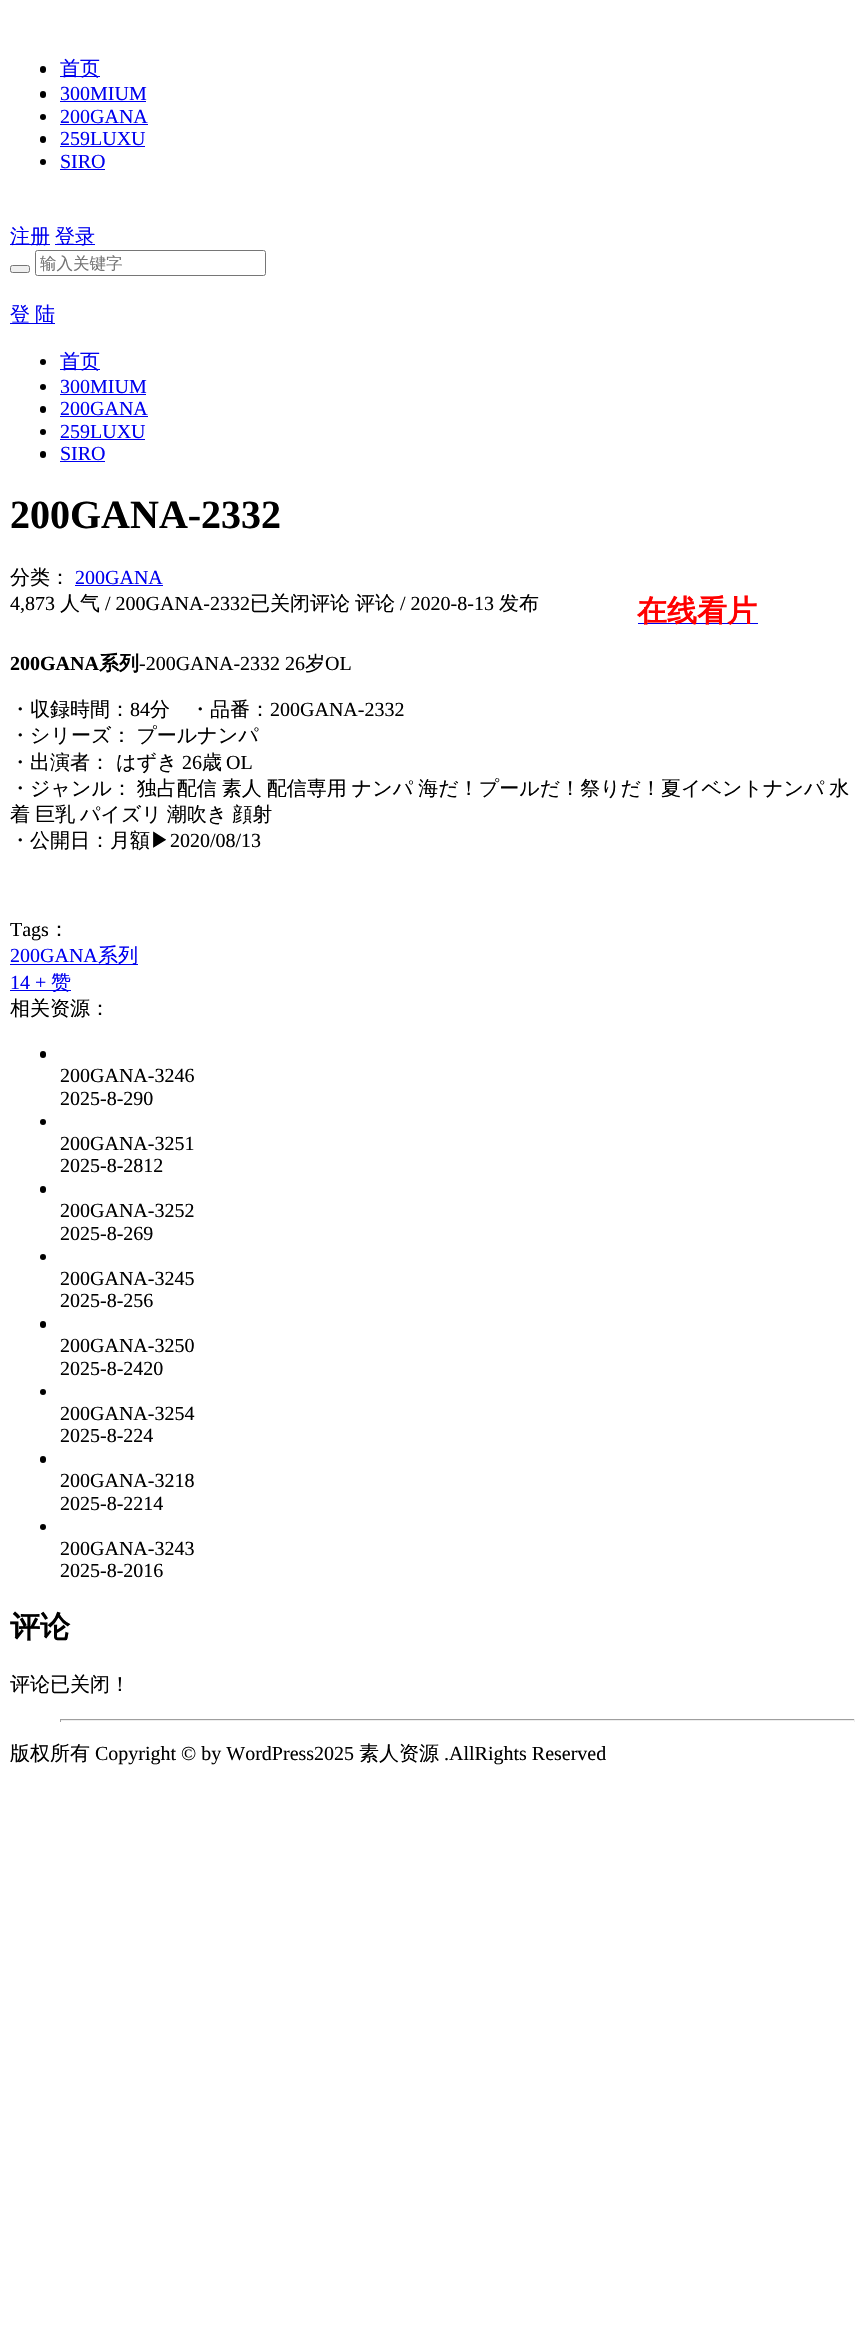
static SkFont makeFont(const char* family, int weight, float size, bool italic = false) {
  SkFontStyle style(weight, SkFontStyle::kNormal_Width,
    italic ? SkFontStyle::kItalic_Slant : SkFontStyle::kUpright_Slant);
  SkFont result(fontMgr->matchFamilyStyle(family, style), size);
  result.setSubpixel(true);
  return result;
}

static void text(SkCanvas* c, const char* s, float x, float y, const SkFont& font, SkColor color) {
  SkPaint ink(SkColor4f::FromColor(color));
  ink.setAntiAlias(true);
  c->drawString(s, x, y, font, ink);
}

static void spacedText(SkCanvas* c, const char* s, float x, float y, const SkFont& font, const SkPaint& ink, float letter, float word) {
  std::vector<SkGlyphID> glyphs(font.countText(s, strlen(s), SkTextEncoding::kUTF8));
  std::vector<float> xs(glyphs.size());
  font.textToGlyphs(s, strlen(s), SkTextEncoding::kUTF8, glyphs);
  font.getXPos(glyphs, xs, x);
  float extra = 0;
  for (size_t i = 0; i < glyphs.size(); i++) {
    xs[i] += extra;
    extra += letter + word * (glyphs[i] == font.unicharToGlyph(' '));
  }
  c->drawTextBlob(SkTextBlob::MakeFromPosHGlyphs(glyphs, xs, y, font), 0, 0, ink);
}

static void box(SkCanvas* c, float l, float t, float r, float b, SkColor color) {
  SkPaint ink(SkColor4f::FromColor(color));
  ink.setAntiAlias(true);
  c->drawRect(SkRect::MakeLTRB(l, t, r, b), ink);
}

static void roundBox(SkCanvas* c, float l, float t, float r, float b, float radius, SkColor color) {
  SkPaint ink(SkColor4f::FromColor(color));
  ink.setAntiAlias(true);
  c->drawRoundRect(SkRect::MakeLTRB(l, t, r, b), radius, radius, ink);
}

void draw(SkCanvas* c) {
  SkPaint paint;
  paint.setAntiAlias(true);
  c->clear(0xffffffff);
  roundBox(c, 40, 66, 46, 73, 3, 0xff000000);
  box(c, 60, 76, 100, 77, 0xff0000ee);
  SkFont face1 = makeFont("WenQuanYi Zen Hei", 500, 20);
  text(c, "首页", 60, 75, face1, 0xff0000ee);
  roundBox(c, 40, 91, 46, 98, 3, 0xff000000);
  SkFont face2 = makeFont("Liberation Serif", 400, 20);
  text(c, "300MIUM", 60, 100, face2, 0xff0000ee);
  box(c, 60, 101, 146, 102, 0xff0000ee);
  paint.setColor(0xff000000);
  c->drawCircle(43, 117, 3, paint);
  text(c, "200GANA", 60, 123, face2, 0xff0000ee);
  box(c, 60, 124, 148, 125, 0xff0000ee);
  roundBox(c, 40, 136, 46, 143, 3, 0xff000000);
  text(c, "259LUXU", 60, 145, face2, 0xff0000ee);
  box(c, 60, 146, 145, 147, 0xff0000ee);
  c->drawCircle(43, 162, 3, paint);
  text(c, "SIRO", 60, 168, face2, 0xff0000ee);
  box(c, 60, 169, 105, 170, 0xff0000ee);
  box(c, 10, 244, 50, 245, 0xff0000ee);
  text(c, "注册", 10, 243, face1, 0xff0000ee);
  box(c, 55, 244, 95, 245, 0xff0000ee);
  text(c, "登录", 55, 243, face1, 0xff0000ee);
  paint.setColor(0xffefefef);
  c->drawRoundRect(SkRect::MakeLTRB(10.5f, 265.5f, 29.5f, 272.5f), 2, 2, paint);
  paint.setStyle(SkPaint::kStroke_Style);
  paint.setStrokeWidth(1);
  paint.setColor(0xff767676);
  c->drawRoundRect(SkRect::MakeLTRB(10.5f, 265.5f, 29.5f, 272.5f), 2, 2, paint);
  c->drawRoundRect(SkRect::MakeLTRB(35.5f, 250.5f, 265.5f, 275.5f), 2, 2, paint);
  SkFont face3 = makeFont("WenQuanYi Zen Hei", 500, 16.5f);
  text(c, "输入关键字", 40, 269, face3, 0xff757575);
  box(c, 10, 323, 55, 324, 0xff0000ee);
  paint.setStyle(SkPaint::kFill_Style);
  paint.setColor(0xff0000ee);
  spacedText(c, "登 陆", 10, 321, face1, paint, 0, -1);
  paint.setColor(0xff000000);
  c->drawCircle(43, 362, 3, paint);
  box(c, 60, 369, 100, 370, 0xff0000ee);
  text(c, "首页", 60, 368, face1, 0xff0000ee);
  c->drawCircle(43, 387, 3, paint);
  text(c, "300MIUM", 60, 393, face2, 0xff0000ee);
  box(c, 60, 394, 146, 395, 0xff0000ee);
  roundBox(c, 40, 406, 46, 413, 3, 0xff000000);
  text(c, "200GANA", 60, 415, face2, 0xff0000ee);
  box(c, 60, 416, 148, 417, 0xff0000ee);
  c->drawCircle(43, 432, 3, paint);
  text(c, "259LUXU", 60, 438, face2, 0xff0000ee);
  box(c, 60, 439, 145, 440, 0xff0000ee);
  roundBox(c, 40, 451, 46, 458, 3, 0xff000000);
  text(c, "SIRO", 60, 460, face2, 0xff0000ee);
  box(c, 60, 461, 105, 462, 0xff0000ee);
  SkFont face4 = makeFont("Liberation Serif", 700, 40);
  text(c, "200GANA-2332", 10, 528, face4, 0xff000000);
  text(c, "分类：", 10, 584, face1, 0xff000000);
  text(c, "200GANA", 75, 584, face2, 0xff0000ee);
  box(c, 75, 585, 163, 586, 0xff0000ee);
  text(c, "4,873", 10, 610, face2, 0xff000000);
  text(c, "人气", 60, 610, face1, 0xff000000);
  text(c, "/ 200GANA-2332", 105, 610, face2, 0xff000000);
  text(c, "已关闭评论", 250, 610, face1, 0xff000000);
  text(c, "评论", 355, 610, face1, 0xff000000);
  text(c, "/ 2020-8-13", 400, 610, face2, 0xff000000);
  text(c, "发布", 499, 610, face1, 0xff000000);
  box(c, 638, 623, 758, 624, 0xff0000ee);
  SkFont face5 = makeFont("WenQuanYi Zen Hei", 700, 30);
  text(c, "在线看片", 637, 621, face5, 0xffff0000);
  SkFont face6 = makeFont("Liberation Serif", 700, 20);
  text(c, "200GANA", 10, 670, face6, 0xff000000);
  SkFont face7 = makeFont("WenQuanYi Zen Hei", 700, 20);
  text(c, "系列", 99, 670, face7, 0xff000000);
  text(c, "-200GANA-2332 26", 139, 670, face2, 0xff000000);
  text(c, "岁", 305, 670, face1, 0xff000000);
  text(c, "OL", 325, 670, face2, 0xff000000);
  text(c, "・収録時間：", 10, 716, face1, 0xff000000);
  text(c, "84", 130, 716, face2, 0xff000000);
  text(c, "分　・品番：", 150, 716, face1, 0xff000000);
  text(c, "200GANA-2332", 270, 716, face2, 0xff000000);
  spacedText(c, "・シリーズ： プールナンパ", 10, 742, face1, paint, 0, -1);
  text(c, "・出演者： はずき", 10, 769, face1, 0xff000000);
  text(c, "26", 182, 769, face2, 0xff000000);
  text(c, "歳", 202, 769, face1, 0xff000000);
  text(c, "OL", 226, 769, face2, 0xff000000);
  spacedText(c, "・ジャンル： 独占配信 素人 配信専用 ナンパ 海だ！プールだ！祭りだ！夏イベントナンパ 水", 10, 795, face1, paint, 0, -1);
  spacedText(c, "着 巨乳 パイズリ 潮吹き 顔射", 10, 821, face1, paint, 0, -1);
  text(c, "・公開日：月額▶", 10, 847, face1, 0xff000000);
  text(c, "2020/08/13", 170, 847, face2, 0xff000000);
  text(c, "Tags", 10, 936, face2, 0xff000000);
  text(c, "：", 49, 936, face1, 0xff000000);
  text(c, "200GANA", 10, 962, face2, 0xff0000ee);
  box(c, 10, 964, 138, 965, 0xff0000ee);
  text(c, "系列", 98, 962, face1, 0xff0000ee);
  text(c, "14 +", 10, 989, face2, 0xff0000ee);
  box(c, 10, 990, 71, 991, 0xff0000ee);
  text(c, "赞", 51, 989, face1, 0xff0000ee);
  text(c, "相关资源：", 10, 1015, face1, 0xff000000);
  roundBox(c, 40, 1051, 46, 1058, 3, 0xff000000);
  text(c, "200GANA-3246", 60, 1082, face2, 0xff000000);
  text(c, "2025-8-290", 60, 1105, face2, 0xff000000);
  c->drawCircle(43, 1122, 3, paint);
  text(c, "200GANA-3251", 60, 1150, face2, 0xff000000);
  text(c, "2025-8-2812", 60, 1172, face2, 0xff000000);
  roundBox(c, 40, 1186, 46, 1193, 3, 0xff000000);
  text(c, "200GANA-3252", 60, 1217, face2, 0xff000000);
  text(c, "2025-8-269", 60, 1240, face2, 0xff000000);
  c->drawCircle(43, 1257, 3, paint);
  text(c, "200GANA-3245", 60, 1285, face2, 0xff000000);
  text(c, "2025-8-256", 60, 1307, face2, 0xff000000);
  roundBox(c, 40, 1321, 46, 1328, 3, 0xff000000);
  text(c, "200GANA-3250", 60, 1352, face2, 0xff000000);
  text(c, "2025-8-2420", 60, 1375, face2, 0xff000000);
  c->drawCircle(43, 1392, 3, paint);
  text(c, "200GANA-3254", 60, 1420, face2, 0xff000000);
  text(c, "2025-8-224", 60, 1442, face2, 0xff000000);
  roundBox(c, 40, 1456, 46, 1463, 3, 0xff000000);
  text(c, "200GANA-3218", 60, 1487, face2, 0xff000000);
  text(c, "2025-8-2214", 60, 1510, face2, 0xff000000);
  c->drawCircle(43, 1527, 3, paint);
  text(c, "200GANA-3243", 60, 1555, face2, 0xff000000);
  text(c, "2025-8-2016", 60, 1577, face2, 0xff000000);
  text(c, "评论", 10, 1637, face5, 0xff000000);
  text(c, "评论已关闭！", 10, 1691, face1, 0xff000000);
  box(c, 60, 1719, 855, 1720, 0xff9f9f9f);
  box(c, 854, 1719, 855, 1722, 0xffeeeeee);
  box(c, 60, 1720, 855, 1721, 0xffeeeeee);
  box(c, 60, 1719, 61, 1722, 0xff9f9f9f);
  text(c, "版权所有", 10, 1760, face1, 0xff000000);
  text(c, "Copyright © by WordPress2025", 95, 1760, face2, 0xff000000);
  text(c, "素人资源", 359, 1760, face1, 0xff000000);
  text(c, ".AllRights Reserved", 444, 1760, face2, 0xff000000);
}
